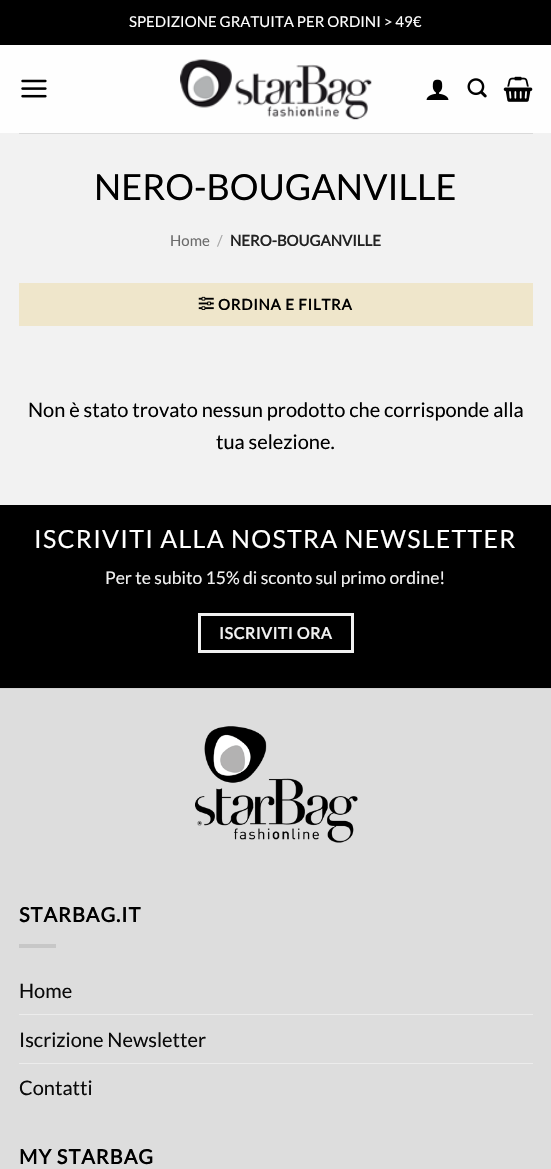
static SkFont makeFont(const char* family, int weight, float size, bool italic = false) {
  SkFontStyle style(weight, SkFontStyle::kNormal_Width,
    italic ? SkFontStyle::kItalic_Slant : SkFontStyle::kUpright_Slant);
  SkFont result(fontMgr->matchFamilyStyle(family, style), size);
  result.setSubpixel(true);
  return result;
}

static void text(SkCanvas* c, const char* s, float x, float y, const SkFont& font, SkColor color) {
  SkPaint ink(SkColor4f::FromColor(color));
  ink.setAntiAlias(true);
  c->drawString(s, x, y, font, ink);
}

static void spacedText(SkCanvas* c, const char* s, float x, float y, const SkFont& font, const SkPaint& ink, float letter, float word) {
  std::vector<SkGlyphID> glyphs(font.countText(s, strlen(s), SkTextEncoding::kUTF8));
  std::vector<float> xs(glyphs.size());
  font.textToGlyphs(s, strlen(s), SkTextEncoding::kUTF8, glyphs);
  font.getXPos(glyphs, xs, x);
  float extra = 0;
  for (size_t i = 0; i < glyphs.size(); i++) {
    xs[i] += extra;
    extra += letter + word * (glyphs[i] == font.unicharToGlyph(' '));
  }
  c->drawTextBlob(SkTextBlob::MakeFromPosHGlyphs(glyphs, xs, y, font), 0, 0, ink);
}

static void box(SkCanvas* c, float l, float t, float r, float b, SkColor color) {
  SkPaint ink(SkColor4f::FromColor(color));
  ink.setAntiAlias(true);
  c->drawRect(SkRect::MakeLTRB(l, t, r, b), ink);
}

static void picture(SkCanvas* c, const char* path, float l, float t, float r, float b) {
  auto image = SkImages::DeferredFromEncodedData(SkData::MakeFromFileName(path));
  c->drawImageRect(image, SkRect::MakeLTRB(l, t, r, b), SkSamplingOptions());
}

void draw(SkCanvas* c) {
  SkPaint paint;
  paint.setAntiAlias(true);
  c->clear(0xfff2f2f2);
  box(c, 0, 0, 551, 45, 0xff000000);
  SkFont face1 = makeFont("Lato", 400, 15);
  text(c, "SPEDIZIONE GRATUITA PER ORDINI > 49€", 129, 27, face1, 0xffffffff);
  box(c, 0, 45, 551, 133, 0xfffefefe);
  picture(c, "img_01.png", 21, 79, 47, 98);
  picture(c, "img_02.png", 180, 59, 372, 120);
  picture(c, "img_03.png", 426, 79, 449, 100);
  picture(c, "img_04.png", 467, 78, 487, 98);
  picture(c, "img_05.png", 503, 76, 533, 102);
  box(c, 19, 133, 533, 134, 0xffdadada);
  SkFont face2 = makeFont("Lato", 400, 36);
  text(c, "NERO-BOUGANVILLE", 94, 200, face2, 0xff000000);
  text(c, "Home", 170, 246, face1, 0xff6c6c6c);
  text(c, "/", 217, 246, face1, 0xffa9a9a9);
  SkFont face3 = makeFont("Lato", 700, 15);
  text(c, "NERO-BOUGANVILLE", 230, 246, face3, 0xff222222);
  box(c, 19, 283, 533, 326, 0xffefe6cb);
  picture(c, "img_06.png", 198, 296, 214, 310);
  paint.setColor(0xff000000);
  spacedText(c, "ORDINA E FILTRA", 218, 310, face3, paint, 0.75f, 0);
  SkFont face4 = makeFont("Lato", 400, 20);
  text(c, "Non è stato trovato nessun prodotto che corrisponde alla", 28, 417, face4, 0xff000000);
  text(c, "tua selezione.", 216, 449, face4, 0xff000000);
  box(c, 0, 505, 551, 688, 0xff000000);
  SkFont face5 = makeFont("Lato", 400, 25);
  paint.setColor(0xffffffff);
  spacedText(c, "ISCRIVITI ALLA NOSTRA NEWSLETTER", 34, 548, face5, paint, 1.25f, 0);
  SkFont face6 = makeFont("Lato", 400, 17.5f);
  text(c, "Per te subito 15% di sconto sul primo ordine!", 105, 584, face6, 0xfff1f1f1);
  paint.setStyle(SkPaint::kStroke_Style);
  paint.setStrokeWidth(3);
  paint.setColor(0xfff1f1f1);
  c->drawRect(SkRect::MakeLTRB(199.5f, 614.5f, 352.5f, 651.5f), paint);
  SkFont face7 = makeFont("Lato", 700, 16);
  paint.setStyle(SkPaint::kFill_Style);
  spacedText(c, "ISCRIVITI ORA", 219, 639, face7, paint, 0.5f, 0);
  box(c, 0, 689, 551, 1169, 0xffdddddd);
  box(c, 0, 688, 551, 689, 0xffd2d2d2);
  picture(c, "img_07.png", 195, 726, 358, 843);
  SkFont face8 = makeFont("Lato", 700, 20);
  paint.setColor(0xff000000);
  spacedText(c, "STARBAG.IT", 19, 922, face8, paint, 1, 0);
  box(c, 19, 944, 56, 948, 0xffc7c7c7);
  text(c, "Home", 19, 998, face4, 0xff0a0a0a);
  box(c, 19, 1014, 533, 1015, 0xffececec);
  text(c, "Iscrizione Newsletter", 19, 1047, face4, 0xff0a0a0a);
  box(c, 19, 1063, 533, 1064, 0xffececec);
  text(c, "Contatti", 19, 1095, face4, 0xff0a0a0a);
  spacedText(c, "MY STARBAG", 19, 1164, face8, paint, 1, 0);
}
